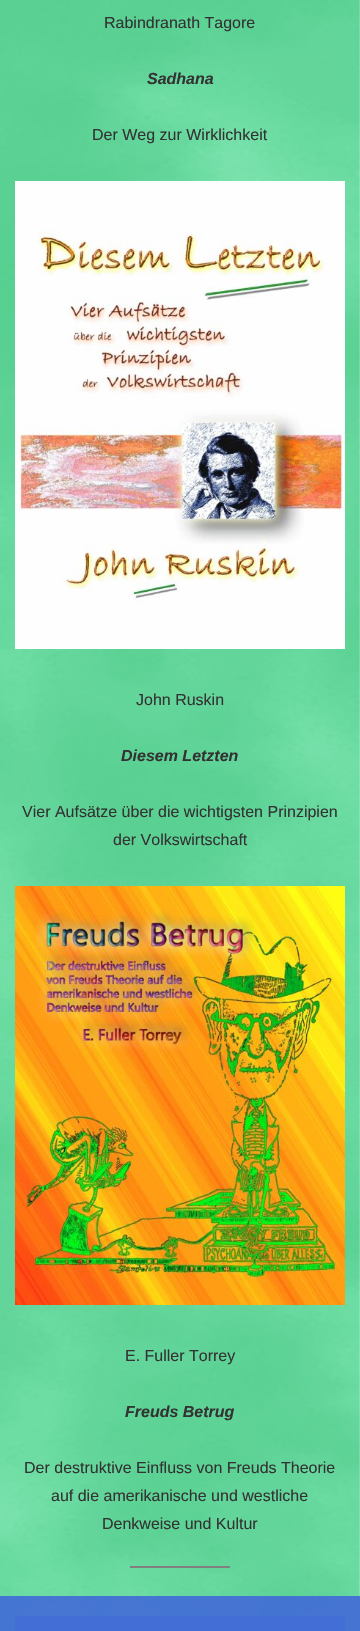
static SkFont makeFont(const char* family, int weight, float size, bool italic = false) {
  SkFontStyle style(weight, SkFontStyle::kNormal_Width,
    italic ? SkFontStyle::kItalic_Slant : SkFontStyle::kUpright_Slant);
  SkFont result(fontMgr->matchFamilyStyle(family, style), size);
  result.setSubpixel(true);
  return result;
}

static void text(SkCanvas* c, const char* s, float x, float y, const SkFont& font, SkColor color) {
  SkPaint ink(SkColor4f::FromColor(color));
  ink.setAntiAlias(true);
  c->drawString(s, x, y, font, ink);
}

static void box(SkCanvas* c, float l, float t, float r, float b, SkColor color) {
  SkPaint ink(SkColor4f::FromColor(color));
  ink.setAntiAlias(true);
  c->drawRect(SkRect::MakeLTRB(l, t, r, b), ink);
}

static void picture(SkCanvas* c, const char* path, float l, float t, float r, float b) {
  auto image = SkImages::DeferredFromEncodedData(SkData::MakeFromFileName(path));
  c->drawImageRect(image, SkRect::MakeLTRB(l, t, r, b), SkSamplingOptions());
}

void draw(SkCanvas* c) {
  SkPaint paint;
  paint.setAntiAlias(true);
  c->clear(0xffffffff);
  picture(c, "img_01.png", 0, 0, 360, 1631);
  SkFont face1 = makeFont("Liberation Sans", 400, 16);
  text(c, "Rabindranath Tagore", 104, 28, face1, 0xff333333);
  SkFont face2 = makeFont("Liberation Sans", 700, 16, true);
  text(c, "Sadhana", 147, 84, face2, 0xff333333);
  text(c, "Der Weg zur Wirklichkeit", 92, 140, face1, 0xff333333);
  picture(c, "img_02.png", 15, 181, 345, 649);
  text(c, "John Ruskin", 136, 705, face1, 0xff333333);
  text(c, "Diesem Letzten", 121, 761, face2, 0xff333333);
  text(c, "Vier Aufsätze über die wichtigsten Prinzipien", 22, 817, face1, 0xff333333);
  text(c, "der Volkswirtschaft", 113, 845, face1, 0xff333333);
  picture(c, "img_03.png", 15, 886, 345, 1305);
  text(c, "E. Fuller Torrey", 125, 1361, face1, 0xff333333);
  text(c, "Freuds Betrug", 125, 1417, face2, 0xff333333);
  text(c, "Der destruktive Einfluss von Freuds Theorie", 24, 1473, face1, 0xff333333);
  text(c, "auf die amerikanische und westliche", 51, 1501, face1, 0xff333333);
  text(c, "Denkweise und Kultur", 102, 1529, face1, 0xff333333);
  box(c, 130, 1566, 230, 1568, 0xff808080);
  box(c, 0, 1596, 360, 1631, 0xba426cd6);
  box(c, 0, 1596, 360, 1631, 0xba426cd6);
  box(c, 15, 1616, 345, 1631, 0xff436ed5);
}
